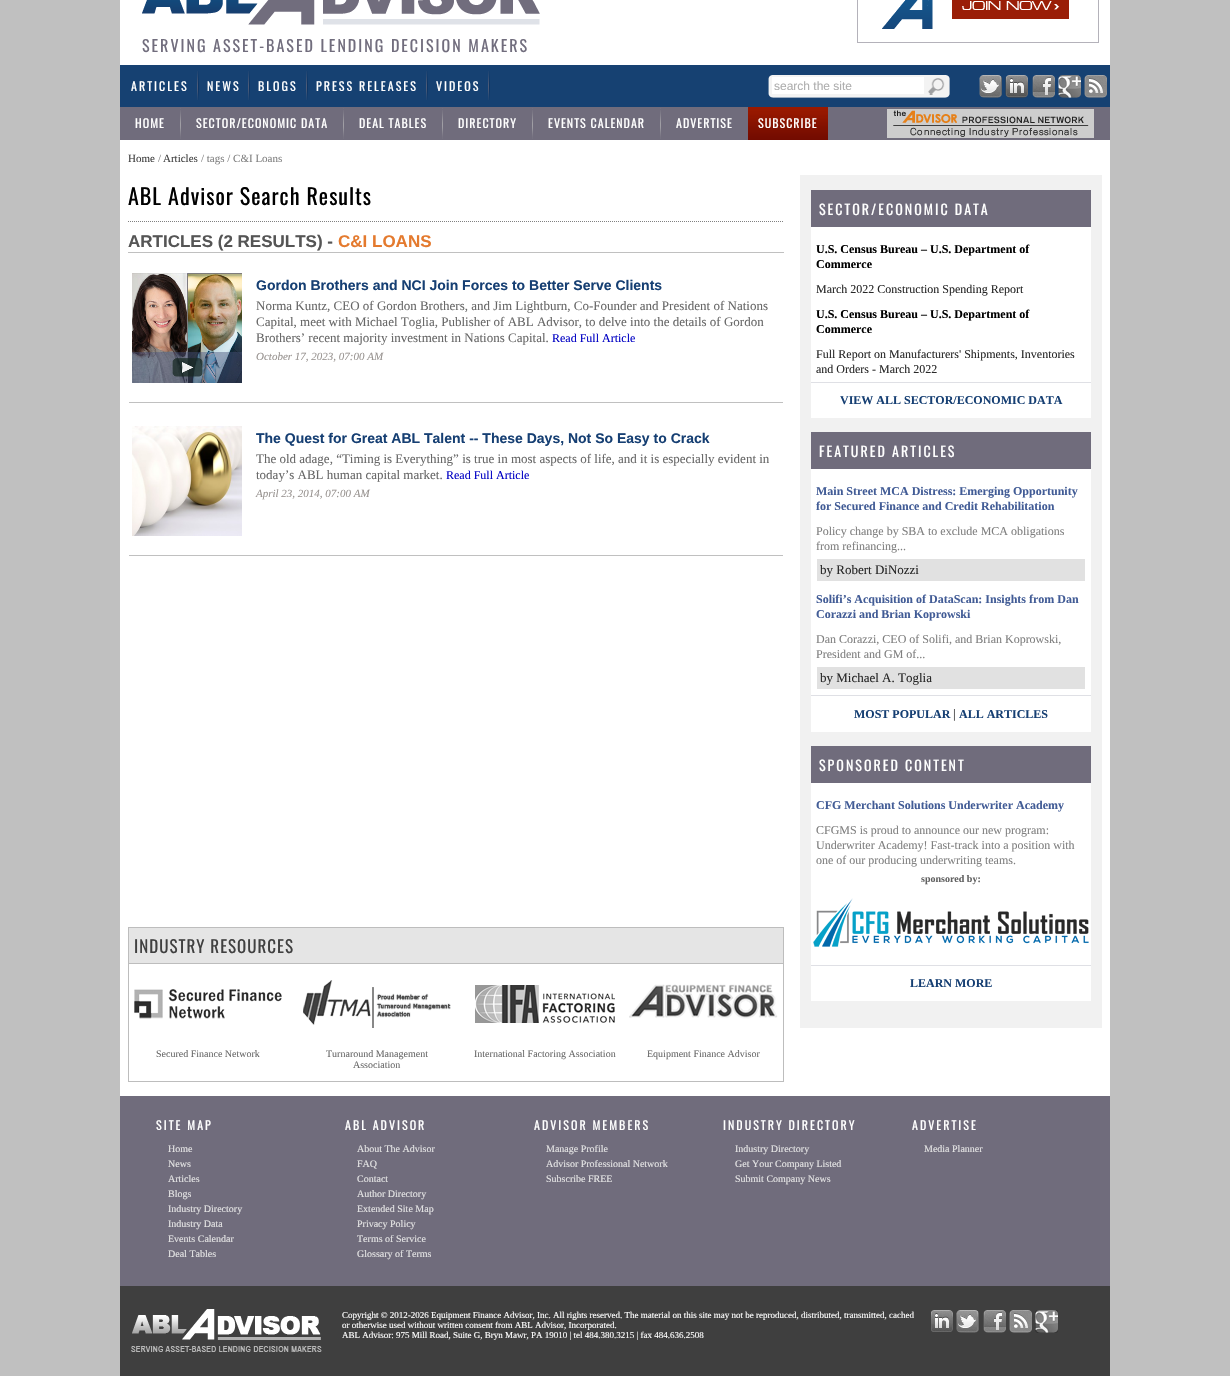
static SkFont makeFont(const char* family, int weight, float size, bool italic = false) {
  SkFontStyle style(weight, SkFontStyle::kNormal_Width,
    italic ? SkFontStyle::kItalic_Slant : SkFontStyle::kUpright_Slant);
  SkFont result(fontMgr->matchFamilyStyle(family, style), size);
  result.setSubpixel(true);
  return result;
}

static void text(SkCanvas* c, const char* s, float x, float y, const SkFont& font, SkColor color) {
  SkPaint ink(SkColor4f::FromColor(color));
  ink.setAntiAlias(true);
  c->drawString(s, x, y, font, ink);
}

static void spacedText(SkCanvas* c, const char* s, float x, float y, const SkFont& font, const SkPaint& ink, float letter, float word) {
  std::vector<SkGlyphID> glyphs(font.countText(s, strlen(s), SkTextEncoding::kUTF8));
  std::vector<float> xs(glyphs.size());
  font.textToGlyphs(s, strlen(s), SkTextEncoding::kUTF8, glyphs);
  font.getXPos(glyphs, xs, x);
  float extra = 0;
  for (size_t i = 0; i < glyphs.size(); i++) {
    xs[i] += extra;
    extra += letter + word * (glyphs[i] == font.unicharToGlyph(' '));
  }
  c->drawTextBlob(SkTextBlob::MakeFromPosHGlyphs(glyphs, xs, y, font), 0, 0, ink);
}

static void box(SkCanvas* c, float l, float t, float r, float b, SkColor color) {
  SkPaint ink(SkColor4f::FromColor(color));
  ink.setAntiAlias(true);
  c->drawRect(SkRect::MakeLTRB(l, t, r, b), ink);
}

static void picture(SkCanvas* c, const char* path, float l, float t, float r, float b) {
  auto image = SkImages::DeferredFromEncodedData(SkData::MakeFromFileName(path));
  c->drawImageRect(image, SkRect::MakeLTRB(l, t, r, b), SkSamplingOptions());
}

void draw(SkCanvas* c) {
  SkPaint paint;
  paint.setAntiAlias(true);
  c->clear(0xffc0c0c0);
  box(c, 120, 0, 1110, 65, 0xffffffff);
  paint.setStyle(SkPaint::kStroke_Style);
  paint.setStrokeWidth(1);
  paint.setColor(0xffb4b2ba);
  c->drawRect(SkRect::MakeLTRB(857.5f, -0.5f, 1098.5f, 42.5f), paint);
  picture(c, "img_01.png", 882, 0, 1069, 29);
  picture(c, "img_02.png", 142, 0, 540, 25);
  SkFont face1 = makeFont("Oswald", 400, 16);
  paint.setStyle(SkPaint::kFill_Style);
  paint.setColor(0xff716d7d);
  spacedText(c, "SERVING ASSET-BASED LENDING DECISION MAKERS", 142, 52, face1, paint, 2, 0);
  box(c, 120, 65, 1110, 107, 0xff164172);
  picture(c, "img_03.png", 197, 71, 199, 100);
  SkFont face2 = makeFont("Oswald", 400, 12);
  paint.setColor(0xffffffff);
  spacedText(c, "ARTICLES", 131, 91, face2, paint, 2, 0);
  picture(c, "img_03.png", 248, 71, 250, 100);
  spacedText(c, "NEWS", 207, 91, face2, paint, 2, 0);
  picture(c, "img_03.png", 306, 71, 308, 100);
  spacedText(c, "BLOGS", 258, 91, face2, paint, 2, 0);
  picture(c, "img_03.png", 426, 71, 428, 100);
  spacedText(c, "PRESS RELEASES", 316, 91, face2, paint, 2, 0);
  picture(c, "img_03.png", 488, 71, 490, 100);
  spacedText(c, "VIDEOS", 436, 91, face2, paint, 2, 0);
  picture(c, "img_04.png", 768, 75, 950, 98);
  box(c, 772, 77, 924, 94, 0xffffffff);
  SkFont face3 = makeFont("Liberation Sans", 400, 12);
  text(c, "search the site", 774, 90, face3, 0xffaeaeae);
  picture(c, "img_05.png", 928, 78, 945, 95);
  picture(c, "img_06.png", 979, 75, 1002, 98);
  picture(c, "img_07.png", 1005, 75, 1028, 98);
  picture(c, "img_08.png", 1032, 75, 1055, 98);
  picture(c, "img_09.png", 1058, 75, 1081, 98);
  picture(c, "img_10.png", 1084, 75, 1107, 98);
  box(c, 120, 107, 1110, 140, 0xff706c7c);
  picture(c, "img_11.png", 180, 108, 181, 139);
  spacedText(c, "HOME", 135, 128, face2, paint, 1, 0);
  picture(c, "img_11.png", 343, 108, 344, 139);
  spacedText(c, "SECTOR/ECONOMIC DATA", 196, 128, face2, paint, 1, 0);
  picture(c, "img_11.png", 442, 108, 443, 139);
  spacedText(c, "DEAL TABLES", 359, 128, face2, paint, 1, 0);
  picture(c, "img_11.png", 532, 108, 533, 139);
  spacedText(c, "DIRECTORY", 458, 128, face2, paint, 1, 0);
  picture(c, "img_11.png", 660, 108, 661, 139);
  spacedText(c, "EVENTS CALENDAR", 548, 128, face2, paint, 1, 0);
  spacedText(c, "ADVERTISE", 676, 128, face2, paint, 1, 0);
  picture(c, "img_12.png", 748, 107, 828, 140);
  spacedText(c, "SUBSCRIBE", 758, 128, face2, paint, 1, 0);
  picture(c, "img_13.png", 887, 109, 1094, 138);
  box(c, 120, 140, 1110, 1096, 0xffffffff);
  SkFont face4 = makeFont("Liberation Serif", 400, 11);
  text(c, "Home", 128, 162, face4, 0xff404040);
  text(c, "/", 158, 162, face4, 0xff808080);
  text(c, "Articles", 163, 162, face4, 0xff404040);
  text(c, "/ tags / C&I Loans", 201, 162, face4, 0xff808080);
  paint.setStyle(SkPaint::kStroke_Style);
  paint.setColor(0xff808080);
  paint.setPathEffect(SkDashPathEffect::Make({{1, 1}}, 0));
  c->drawPath(SkPathBuilder().moveTo(128, 221.5f).lineTo(784, 221.5f).detach(), paint);
  paint.setPathEffect(nullptr);
  SkFont face5 = makeFont("Oswald", 400, 22);
  paint.setStyle(SkPaint::kFill_Style);
  paint.setColor(0xff000000);
  spacedText(c, "ABL Advisor Search Results", 128, 205, face5, paint, 1, 0);
  box(c, 128, 252, 784, 253, 0xffc0c0c0);
  SkFont face6 = makeFont("Liberation Sans", 700, 17);
  text(c, "ARTICLES (2 RESULTS) -", 128, 247, face6, 0xff555555);
  text(c, "C&I LOANS", 338, 247, face6, 0xffe47a2e);
  picture(c, "img_14.png", 132, 273, 242, 383);
  SkFont face7 = makeFont("Liberation Sans", 700, 14);
  text(c, "Gordon Brothers and NCI Join Forces to Better Serve Clients", 256, 290, face7, 0xff163f73);
  SkFont face8 = makeFont("Liberation Serif", 400, 13);
  text(c, "Norma Kuntz, CEO of Gordon Brothers, and Jim Lightburn, Co-Founder and President of Nations", 256, 310, face8, 0xff686868);
  text(c, "Capital, meet with Michael Toglia, Publisher of ABL Advisor, to delve into the details of Gordon", 256, 326, face8, 0xff686868);
  text(c, "Brothers’ recent majority investment in Nations Capital.", 256, 342, face8, 0xff686868);
  SkFont face9 = makeFont("Liberation Serif", 400, 12);
  text(c, "Read Full Article", 552, 342, face9, 0xff0000c4);
  SkFont face10 = makeFont("Liberation Serif", 400, 11, true);
  text(c, "October 17, 2023, 07:00 AM", 256, 360, face10, 0xff97928f);
  box(c, 129, 402, 783, 403, 0xffc0c0c0);
  picture(c, "img_15.png", 132, 426, 242, 536);
  text(c, "The Quest for Great ABL Talent -- These Days, Not So Easy to Crack", 256, 443, face7, 0xff163f73);
  text(c, "The old adage, “Timing is Everything” is true in most aspects of life, and it is especially evident in", 256, 463, face8, 0xff686868);
  text(c, "today’s ABL human capital market.", 256, 479, face8, 0xff686868);
  text(c, "Read Full Article", 446, 479, face9, 0xff0000c4);
  text(c, "April 23, 2014, 07:00 AM", 256, 497, face10, 0xff97928f);
  box(c, 129, 555, 783, 556, 0xffc0c0c0);
  box(c, 800, 175, 1102, 1028, 0xfff1f1f1);
  box(c, 811, 190, 1091, 227, 0xff706c7c);
  SkFont face11 = makeFont("Oswald", 400, 14);
  paint.setColor(0xffffffff);
  spacedText(c, "SECTOR/ECONOMIC DATA", 819, 215, face11, paint, 2, 0);
  box(c, 811, 227, 1091, 418, 0xffffffff);
  SkFont face12 = makeFont("Liberation Serif", 700, 12);
  text(c, "U.S. Census Bureau – U.S. Department of", 816, 253, face12, 0xff000000);
  text(c, "Commerce", 816, 268, face12, 0xff000000);
  text(c, "March 2022 Construction Spending Report", 816, 293, face9, 0xff282828);
  text(c, "U.S. Census Bureau – U.S. Department of", 816, 318, face12, 0xff000000);
  text(c, "Commerce", 816, 333, face12, 0xff000000);
  text(c, "Full Report on Manufacturers' Shipments, Inventories", 816, 358, face9, 0xff282828);
  text(c, "and Orders - March 2022", 816, 373, face9, 0xff282828);
  box(c, 811, 382, 1091, 383, 0xffdfe0e5);
  text(c, "VIEW ALL SECTOR/ECONOMIC DATA", 840, 404, face12, 0xff163f73);
  box(c, 811, 432, 1091, 469, 0xff706c7c);
  spacedText(c, "FEATURED ARTICLES", 819, 457, face11, paint, 2, 0);
  box(c, 811, 469, 1091, 732, 0xffffffff);
  text(c, "Main Street MCA Distress: Emerging Opportunity", 816, 495, face12, 0xff425c96);
  text(c, "for Secured Finance and Credit Rehabilitation", 816, 510, face12, 0xff425c96);
  text(c, "Policy change by SBA to exclude MCA obligations", 816, 535, face9, 0xff808080);
  text(c, "from refinancing...", 816, 550, face9, 0xff808080);
  box(c, 817, 559, 1085, 581, 0xffe1e1e1);
  text(c, "by Robert DiNozzi", 820, 574, face8, 0xff282828);
  text(c, "Solifi’s Acquisition of DataScan: Insights from Dan", 816, 603, face12, 0xff425c96);
  text(c, "Corazzi and Brian Koprowski", 816, 618, face12, 0xff425c96);
  text(c, "Dan Corazzi, CEO of Solifi, and Brian Koprowski,", 816, 643, face9, 0xff808080);
  text(c, "President and GM of...", 816, 658, face9, 0xff808080);
  box(c, 817, 667, 1085, 689, 0xffe1e1e1);
  text(c, "by Michael A. Toglia", 820, 682, face8, 0xff282828);
  box(c, 811, 695, 1091, 696, 0xffdfe0e5);
  text(c, "MOST POPULAR", 854, 718, face12, 0xff163f73);
  text(c, "|", 953, 718, face8, 0xff282828);
  text(c, "ALL ARTICLES", 959, 718, face12, 0xff163f73);
  box(c, 811, 746, 1091, 783, 0xff706c7c);
  spacedText(c, "SPONSORED CONTENT", 819, 771, face11, paint, 2, 0);
  box(c, 811, 783, 1091, 1001, 0xffffffff);
  text(c, "CFG Merchant Solutions Underwriter Academy", 816, 809, face12, 0xff425c96);
  text(c, "CFGMS is proud to announce our new program:", 816, 834, face9, 0xff808080);
  text(c, "Underwriter Academy! Fast-track into a position with", 816, 849, face9, 0xff808080);
  text(c, "one of our producing underwriting teams.", 816, 864, face9, 0xff808080);
  SkFont face13 = makeFont("Liberation Serif", 700, 10);
  text(c, "sponsored by:", 921, 882, face13, 0xff616161);
  picture(c, "img_16.png", 813, 898, 1089, 947);
  box(c, 811, 965, 1091, 966, 0xffdfe0e5);
  text(c, "LEARN MORE", 910, 987, face12, 0xff163f73);
  paint.setStyle(SkPaint::kStroke_Style);
  paint.setColor(0xffbdbdbd);
  c->drawRect(SkRect::MakeLTRB(128.5f, 927.5f, 783.5f, 1081.5f), paint);
  box(c, 129, 928, 783, 963, 0xffe5e5e5);
  box(c, 129, 963, 783, 964, 0xffbdbdbd);
  SkFont face14 = makeFont("Oswald", 400, 17);
  paint.setStyle(SkPaint::kFill_Style);
  paint.setColor(0xff404040);
  spacedText(c, "INDUSTRY RESOURCES", 134, 953, face14, paint, 1, 0);
  picture(c, "img_17.png", 134, 989, 282, 1019);
  picture(c, "img_18.png", 303, 980, 451, 1028);
  picture(c, "img_19.png", 475, 985, 615, 1023);
  picture(c, "img_20.png", 629, 984, 778, 1019);
  SkFont face15 = makeFont("Liberation Serif", 400, 10);
  text(c, "Secured Finance Network", 156, 1057, face15, 0xff686868);
  text(c, "Turnaround Management", 326, 1057, face15, 0xff686868);
  text(c, "Association", 353, 1068, face15, 0xff686868);
  text(c, "International Factoring Association", 474, 1057, face15, 0xff686868);
  text(c, "Equipment Finance Advisor", 647, 1057, face15, 0xff686868);
  box(c, 120, 1096, 1110, 1286, 0xff706c7c);
  paint.setColor(0xffffffff);
  spacedText(c, "SITE MAP", 156, 1130, face2, paint, 2, 0);
  text(c, "Home", 168, 1152, face15, 0xffe5e5e5);
  text(c, "News", 168, 1167, face15, 0xffe5e5e5);
  text(c, "Articles", 168, 1182, face15, 0xffe5e5e5);
  text(c, "Blogs", 168, 1197, face15, 0xffe5e5e5);
  text(c, "Industry Directory", 168, 1212, face15, 0xffe5e5e5);
  text(c, "Industry Data", 168, 1227, face15, 0xffe5e5e5);
  text(c, "Events Calendar", 168, 1242, face15, 0xffe5e5e5);
  text(c, "Deal Tables", 168, 1257, face15, 0xffe5e5e5);
  spacedText(c, "ABL ADVISOR", 345, 1130, face2, paint, 2, 0);
  text(c, "About The Advisor", 357, 1152, face15, 0xffe5e5e5);
  text(c, "FAQ", 357, 1167, face15, 0xffe5e5e5);
  text(c, "Contact", 357, 1182, face15, 0xffe5e5e5);
  text(c, "Author Directory", 357, 1197, face15, 0xffe5e5e5);
  text(c, "Extended Site Map", 357, 1212, face15, 0xffe5e5e5);
  text(c, "Privacy Policy", 357, 1227, face15, 0xffe5e5e5);
  text(c, "Terms of Service", 357, 1242, face15, 0xffe5e5e5);
  text(c, "Glossary of Terms", 357, 1257, face15, 0xffe5e5e5);
  spacedText(c, "ADVISOR MEMBERS", 534, 1130, face2, paint, 2, 0);
  text(c, "Manage Profile", 546, 1152, face15, 0xffe5e5e5);
  text(c, "Advisor Professional Network", 546, 1167, face15, 0xffe5e5e5);
  text(c, "Subscribe FREE", 546, 1182, face15, 0xffe5e5e5);
  spacedText(c, "INDUSTRY DIRECTORY", 723, 1130, face2, paint, 2, 0);
  text(c, "Industry Directory", 735, 1152, face15, 0xffe5e5e5);
  text(c, "Get Your Company Listed", 735, 1167, face15, 0xffe5e5e5);
  text(c, "Submit Company News", 735, 1182, face15, 0xffe5e5e5);
  spacedText(c, "ADVERTISE", 912, 1130, face2, paint, 2, 0);
  text(c, "Media Planner", 924, 1152, face15, 0xffe5e5e5);
  box(c, 120, 1286, 1110, 1376, 0xff3f3f3f);
  picture(c, "img_21.png", 131, 1309, 322, 1352);
  SkFont face16 = makeFont("Liberation Serif", 400, 9);
  text(c, "Copyright © 2012-2026 Equipment Finance Advisor, Inc. All rights reserved. The material on this site may not be reproduced, distributed, transmitted, cached", 342, 1318, face16, 0xffffffff);
  text(c, "or otherwise used without written consent from ABL Advisor, Incorporated.", 342, 1328, face16, 0xffffffff);
  text(c, "ABL Advisor: 975 Mill Road, Suite G, Bryn Mawr, PA 19010 | tel 484.380.3215 | fax 484.636.2508", 342, 1338, face16, 0xffffffff);
  picture(c, "img_22.png", 931, 1310, 953, 1332);
  picture(c, "img_23.png", 956, 1310, 979, 1333);
  picture(c, "img_24.png", 983, 1310, 1006, 1333);
  picture(c, "img_25.png", 1009, 1310, 1032, 1333);
  picture(c, "img_26.png", 1035, 1310, 1058, 1333);
}
